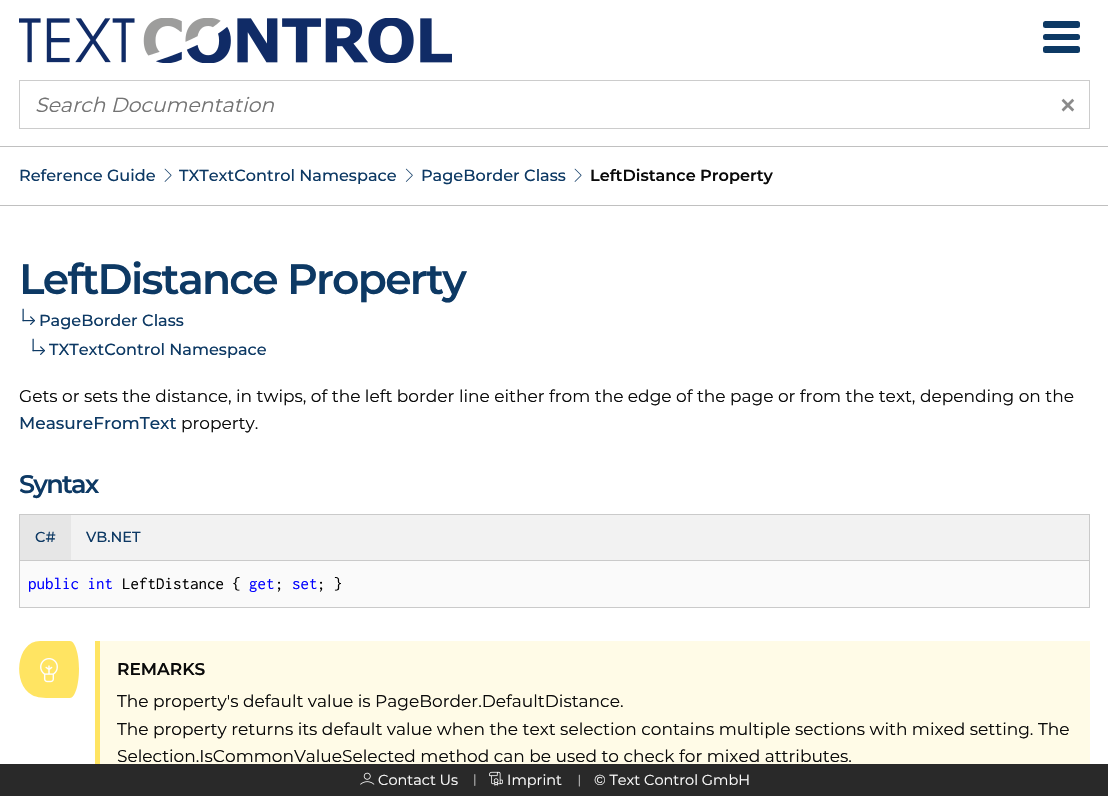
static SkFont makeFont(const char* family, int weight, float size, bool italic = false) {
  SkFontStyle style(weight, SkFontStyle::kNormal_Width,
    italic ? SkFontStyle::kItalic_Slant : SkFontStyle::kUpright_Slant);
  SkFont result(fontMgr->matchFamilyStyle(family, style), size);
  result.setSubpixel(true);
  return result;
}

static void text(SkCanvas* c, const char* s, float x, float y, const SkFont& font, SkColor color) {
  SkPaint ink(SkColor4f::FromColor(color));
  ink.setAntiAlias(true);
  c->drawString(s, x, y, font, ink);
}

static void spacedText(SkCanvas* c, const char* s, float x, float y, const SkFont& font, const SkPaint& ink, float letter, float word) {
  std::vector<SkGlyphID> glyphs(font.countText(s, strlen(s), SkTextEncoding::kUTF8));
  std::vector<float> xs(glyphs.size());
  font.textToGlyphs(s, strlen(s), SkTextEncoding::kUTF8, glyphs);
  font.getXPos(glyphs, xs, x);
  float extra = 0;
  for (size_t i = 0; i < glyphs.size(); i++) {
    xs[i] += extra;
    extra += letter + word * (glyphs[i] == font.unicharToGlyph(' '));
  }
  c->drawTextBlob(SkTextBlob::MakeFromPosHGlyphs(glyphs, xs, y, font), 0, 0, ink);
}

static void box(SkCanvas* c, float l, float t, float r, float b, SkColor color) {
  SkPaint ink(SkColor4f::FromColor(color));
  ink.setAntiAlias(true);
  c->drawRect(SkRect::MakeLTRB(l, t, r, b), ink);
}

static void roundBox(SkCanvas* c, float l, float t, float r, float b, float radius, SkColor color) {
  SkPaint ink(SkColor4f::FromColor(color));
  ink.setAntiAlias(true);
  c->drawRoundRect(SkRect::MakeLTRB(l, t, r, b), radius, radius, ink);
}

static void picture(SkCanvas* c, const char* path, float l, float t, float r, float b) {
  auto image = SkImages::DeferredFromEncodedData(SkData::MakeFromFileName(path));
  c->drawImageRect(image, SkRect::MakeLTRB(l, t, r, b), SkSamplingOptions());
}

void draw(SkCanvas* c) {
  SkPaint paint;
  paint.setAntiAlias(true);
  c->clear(0xffffffff);
  picture(c, "img_01.png", 19, 18, 452, 63);
  roundBox(c, 1043, 21, 1080, 28, 2.5f, 0xff0d3964);
  roundBox(c, 1043, 34, 1080, 40, 2.5f, 0xff0d3964);
  roundBox(c, 1043, 46, 1080, 53, 2.5f, 0xff0d3964);
  paint.setStyle(SkPaint::kStroke_Style);
  paint.setStrokeWidth(1);
  paint.setColor(0xffcccccc);
  c->drawRect(SkRect::MakeLTRB(19.5f, 80.5f, 1089.5f, 128.5f), paint);
  SkFont face1 = makeFont("Montserrat", 100, 20.4f, true);
  text(c, "Search Documentation", 35, 112, face1, 0xff737373);
  SkFont face2 = makeFont("Montserrat", 100, 34);
  text(c, "×", 1058, 117, face2, 0xff8a8a8a);
  box(c, 0, 146, 1108, 147, 0xffc0c0c0);
  box(c, 0, 205, 1108, 206, 0xffc0c0c0);
  SkFont face3 = makeFont("Montserrat", 100, 16.1f);
  text(c, "Reference Guide", 19, 181, face3, 0xff0d3964);
  picture(c, "img_02.png", 164, 168, 172, 182);
  text(c, "TXTextControl Namespace", 179, 181, face3, 0xff0d3964);
  picture(c, "img_03.png", 405, 168, 413, 182);
  text(c, "PageBorder Class", 421, 181, face3, 0xff0d3964);
  picture(c, "img_02.png", 574, 168, 582, 182);
  SkFont face4 = makeFont("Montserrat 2", 100, 16.1f);
  text(c, "LeftDistance Property", 590, 181, face4, 0xff0a0a0a);
  SkFont face5 = makeFont("Montserrat 2", 100, 42.5f);
  paint.setStyle(SkPaint::kFill_Style);
  paint.setColor(0xff0d3964);
  spacedText(c, "LeftDistance Property", 19, 294, face5, paint, -1.75f, 0);
  picture(c, "img_04.png", 22, 308, 35, 325);
  text(c, "PageBorder Class", 39, 326, face3, 0xff0d3964);
  picture(c, "img_04.png", 32, 338, 45, 355);
  text(c, "TXTextControl Namespace", 49, 355, face3, 0xff0d3964);
  SkFont face6 = makeFont("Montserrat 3", 100, 17);
  text(c, "Gets or sets the distance, in twips, of the left border line either from the edge of the page or from the text, depending on the", 19, 402, face6, 0xff0a0a0a);
  SkFont face7 = makeFont("Montserrat", 100, 17);
  text(c, "MeasureFromText", 19, 429, face7, 0xff0d3964);
  text(c, "property.", 181, 429, face6, 0xff0a0a0a);
  SkFont face8 = makeFont("Montserrat 2", 100, 25.5f);
  spacedText(c, "Syntax", 19, 493, face8, paint, -1.75f, 0);
  box(c, 71, 515, 1089, 560, 0xfff2f2f2);
  box(c, 19, 514, 1090, 515, 0xffcacaca);
  box(c, 1089, 514, 1090, 560, 0xffcacaca);
  box(c, 19, 514, 20, 560, 0xffcacaca);
  box(c, 20, 515, 71, 560, 0xffe6e6e6);
  SkFont face9 = makeFont("Montserrat", 100, 14.5f);
  text(c, "C#", 35, 542, face9, 0xff0d3964);
  text(c, "VB.NET", 86, 542, face9, 0xff0d3964);
  paint.setColor(0xfffafafa);
  c->drawRect(SkRect::MakeLTRB(19.5f, 560.5f, 1089.5f, 607.5f), paint);
  paint.setStyle(SkPaint::kStroke_Style);
  paint.setColor(0xffcacaca);
  c->drawRect(SkRect::MakeLTRB(19.5f, 560.5f, 1089.5f, 607.5f), paint);
  SkFont face10 = makeFont("Inconsolata", 400, 17);
  text(c, "public int", 28, 589, face10, 0xff0000ff);
  text(c, "LeftDistance {", 122, 589, face10, 0xff000000);
  text(c, "get", 249, 589, face10, 0xff0000ff);
  text(c, ";", 275, 589, face10, 0xff000000);
  text(c, "set", 292, 589, face10, 0xff0000ff);
  text(c, "; }", 317, 589, face10, 0xff000000);
  paint.setStyle(SkPaint::kFill_Style);
  paint.setColor(0xffffe462);
  c->drawPath(SkPathBuilder().moveTo(40, 641).lineTo(61, 641).lineTo(61, 698).cubicTo(53, 698, 39, 699, 32, 695).cubicTo(12, 684, 16, 641, 40, 641).close().moveTo(61, 641).lineTo(70, 641).cubicTo(75, 641, 79, 654, 79, 669).cubicTo(79, 685, 75, 698, 70, 698).lineTo(61, 698).close().detach(), paint);
  picture(c, "img_05.png", 40, 658, 58, 683);
  box(c, 100, 641, 1090, 764, 0xfffffbe7);
  box(c, 95, 641, 100, 764, 0xffffe462);
  SkFont face11 = makeFont("Montserrat 2", 100, 17);
  text(c, "REMARKS", 117, 675, face11, 0xff0a0a0a);
  text(c, "The property's default value is PageBorder.DefaultDistance.", 117, 707, face6, 0xff0a0a0a);
  text(c, "The property returns its default value when the text selection contains multiple sections with mixed setting. The", 117, 735, face6, 0xff0a0a0a);
  text(c, "Selection.IsCommonValueSelected method can be used to check for mixed attributes.", 117, 762, face6, 0xff0a0a0a);
  box(c, 0, 764, 1108, 796, 0xff292929);
  picture(c, "img_06.png", 360, 772, 375, 785);
  SkFont face12 = makeFont("Montserrat 3", 100, 14.5f);
  text(c, "Contact Us", 378, 785, face12, 0xfffefefe);
  picture(c, "img_07.png", 474, 774, 476, 786);
  picture(c, "img_08.png", 489, 771, 503, 786);
  text(c, "Imprint", 507, 785, face12, 0xfffefefe);
  picture(c, "img_09.png", 578, 774, 580, 787);
  text(c, "© Text Control GmbH", 594, 785, face12, 0xfffefefe);
}
